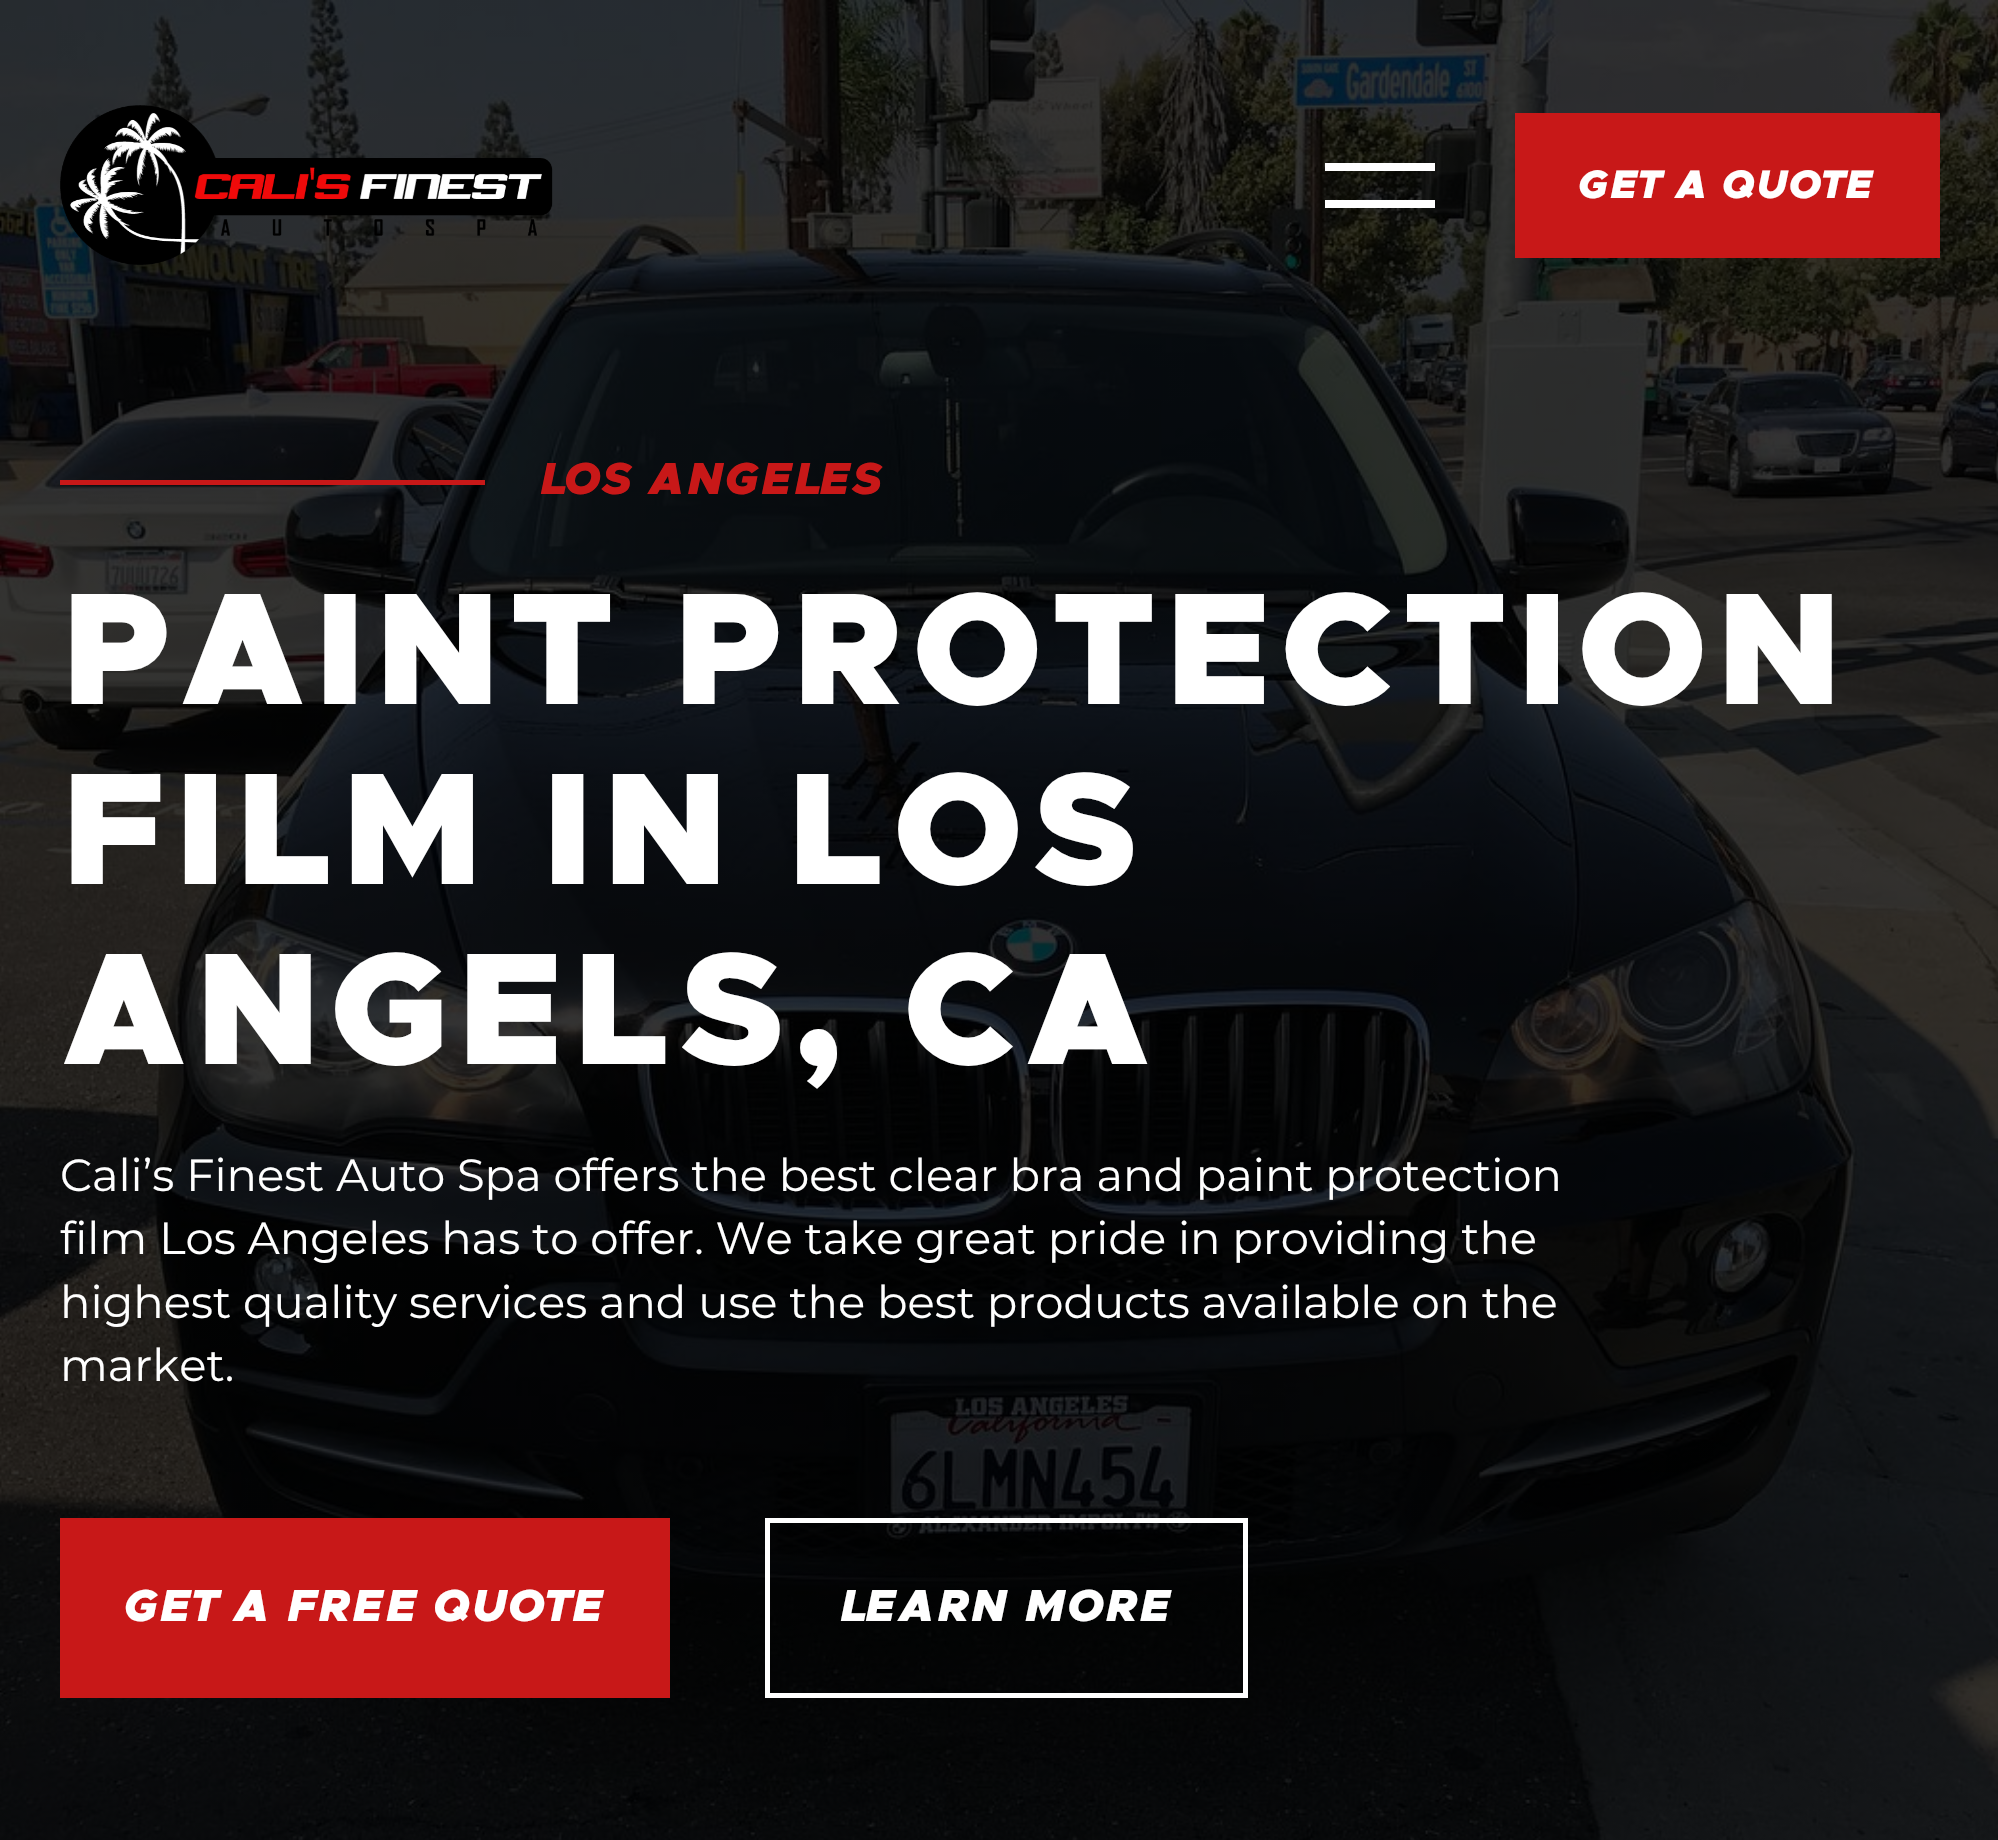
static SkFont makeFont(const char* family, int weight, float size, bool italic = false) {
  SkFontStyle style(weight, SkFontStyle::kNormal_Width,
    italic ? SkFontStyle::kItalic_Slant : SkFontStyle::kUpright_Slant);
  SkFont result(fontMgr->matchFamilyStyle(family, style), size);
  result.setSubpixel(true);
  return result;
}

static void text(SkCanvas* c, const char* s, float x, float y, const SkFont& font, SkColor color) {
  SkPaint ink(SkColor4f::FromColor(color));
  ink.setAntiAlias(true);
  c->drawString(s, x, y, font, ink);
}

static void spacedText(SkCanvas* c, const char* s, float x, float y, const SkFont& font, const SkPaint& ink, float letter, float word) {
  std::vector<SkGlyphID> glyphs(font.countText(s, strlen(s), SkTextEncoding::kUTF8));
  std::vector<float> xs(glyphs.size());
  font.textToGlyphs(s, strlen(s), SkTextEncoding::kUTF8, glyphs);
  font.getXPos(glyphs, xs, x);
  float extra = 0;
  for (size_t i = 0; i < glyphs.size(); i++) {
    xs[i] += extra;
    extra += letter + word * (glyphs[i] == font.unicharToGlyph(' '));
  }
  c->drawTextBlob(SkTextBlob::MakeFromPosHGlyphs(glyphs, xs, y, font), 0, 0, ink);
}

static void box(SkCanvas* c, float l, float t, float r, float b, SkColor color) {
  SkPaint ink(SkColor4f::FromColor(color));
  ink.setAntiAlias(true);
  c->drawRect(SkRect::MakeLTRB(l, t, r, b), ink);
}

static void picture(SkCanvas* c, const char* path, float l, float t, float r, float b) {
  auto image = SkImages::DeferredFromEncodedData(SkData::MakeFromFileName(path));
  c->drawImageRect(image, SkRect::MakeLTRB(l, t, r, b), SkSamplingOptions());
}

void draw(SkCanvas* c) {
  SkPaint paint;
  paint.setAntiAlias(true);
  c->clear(0xffffffff);
  picture(c, "img_02.png", 0, 0, 1998, 1840);
  picture(c, "img_01.png", 60, 105, 553, 265);
  box(c, 1325, 163, 1435, 171, 0xffffffff);
  box(c, 1325, 200, 1435, 208, 0xffffffff);
  box(c, 1515, 113, 1940, 258, 0xffc81818);
  SkFont face1 = makeFont("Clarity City", 900, 40, true);
  paint.setColor(0xffffffff);
  spacedText(c, "GET A QUOTE", 1579, 198, face1, paint, 2.4f, 0);
  box(c, 60, 480, 485, 485, 0xffc81818);
  SkFont face2 = makeFont("Clarity City", 900, 45, true);
  paint.setColor(0xffc81818);
  spacedText(c, "LOS ANGELES", 540, 494, face2, paint, 2.75f, 0);
  SkFont face3 = makeFont("Clarity City", 900, 160);
  paint.setColor(0xffffffff);
  spacedText(c, "PAINT PROTECTION", 60, 704, face3, paint, 6.4f, 0);
  spacedText(c, "FILM IN LOS", 60, 884, face3, paint, 6.4f, 0);
  spacedText(c, "ANGELS, CA", 60, 1064, face3, paint, 6.4f, 0);
  SkFont face4 = makeFont("Montserrat", 400, 45);
  text(c, "Cali’s Finest Auto Spa offers the best clear bra and paint protection", 60, 1191, face4, 0xffffffff);
  text(c, "film Los Angeles has to offer. We take great pride in providing the", 60, 1254, face4, 0xffffffff);
  text(c, "highest quality services and use the best products available on the", 60, 1318, face4, 0xffffffff);
  text(c, "market.", 60, 1381, face4, 0xffffffff);
  box(c, 60, 1518, 670, 1698, 0xffc81818);
  spacedText(c, "GET A FREE QUOTE", 125, 1621, face2, paint, 2.75f, 0);
  paint.setStyle(SkPaint::kStroke_Style);
  paint.setStrokeWidth(5);
  c->drawRect(SkRect::MakeLTRB(767.5f, 1520.5f, 1245.5f, 1695.5f), paint);
  paint.setStyle(SkPaint::kFill_Style);
  spacedText(c, "LEARN MORE", 840, 1621, face2, paint, 2.75f, 0);
}
